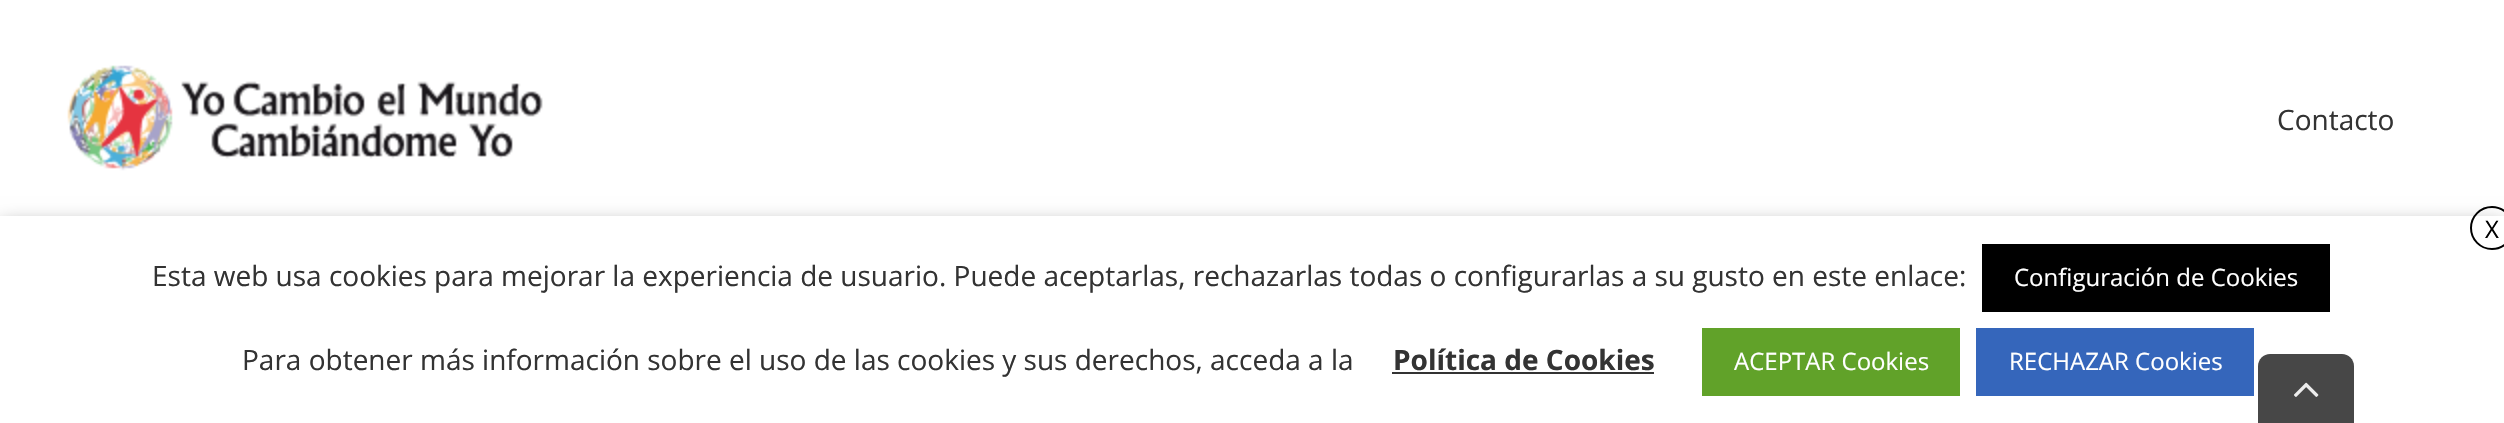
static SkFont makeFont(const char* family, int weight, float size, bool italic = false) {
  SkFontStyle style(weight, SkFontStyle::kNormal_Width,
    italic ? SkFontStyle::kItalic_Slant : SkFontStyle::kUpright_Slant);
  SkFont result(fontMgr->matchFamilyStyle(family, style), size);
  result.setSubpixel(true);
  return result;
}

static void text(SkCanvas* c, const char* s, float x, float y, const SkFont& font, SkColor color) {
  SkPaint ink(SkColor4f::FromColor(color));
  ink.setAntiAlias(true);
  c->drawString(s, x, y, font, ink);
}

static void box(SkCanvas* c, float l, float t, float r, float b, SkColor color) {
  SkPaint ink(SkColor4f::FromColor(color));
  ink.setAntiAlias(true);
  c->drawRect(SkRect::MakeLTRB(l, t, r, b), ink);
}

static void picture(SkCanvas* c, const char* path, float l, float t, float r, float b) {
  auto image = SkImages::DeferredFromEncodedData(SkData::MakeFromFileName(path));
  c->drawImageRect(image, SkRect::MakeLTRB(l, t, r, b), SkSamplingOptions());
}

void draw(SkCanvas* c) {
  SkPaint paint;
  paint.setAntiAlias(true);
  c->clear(0xffffffff);
  picture(c, "img_01.png", 67, 65, 543, 171);
  SkFont face1 = makeFont("Open Sans", 400, 28);
  text(c, "Contacto", 2277, 130, face1, 0xff333333);
  paint.setColor(0x80000000);
  paint.setMaskFilter(SkMaskFilter::MakeBlur(kNormal_SkBlurStyle, 10));
  c->drawRect(SkRect::MakeLTRB(0, 226, 2504, 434), paint);
  paint.setMaskFilter(nullptr);
  box(c, 0, 216, 2504, 423, 0xffffffff);
  paint.setStyle(SkPaint::kStroke_Style);
  paint.setStrokeWidth(2);
  paint.setColor(0xff000000);
  c->drawCircle(2492, 228, 21, paint);
  SkFont face2 = makeFont("Open Sans", 400, 24);
  text(c, "X", 2485, 238, face2, 0xff000000);
  text(c, "Esta web usa cookies para mejorar la experiencia de usuario. Puede aceptarlas, rechazarlas todas o configurarlas a su gusto en este enlace:", 152, 286, face1, 0xff333333);
  paint.setStyle(SkPaint::kFill_Style);
  c->drawRoundRect(SkRect::MakeLTRB(1978, 240, 2334, 316), 4, 4, paint);
  paint.setStyle(SkPaint::kStroke_Style);
  paint.setStrokeWidth(8);
  paint.setColor(0xffffffff);
  c->drawRoundRect(SkRect::MakeLTRB(1978, 240, 2334, 316), 4, 4, paint);
  text(c, "Configuración de Cookies", 2014, 286, face2, 0xffffffff);
  text(c, "Para obtener más información sobre el uso de las cookies y sus derechos, acceda a la", 242, 370, face1, 0xff333333);
  SkFont face3 = makeFont("Open Sans", 700, 28);
  text(c, "Política de Cookies", 1393, 370, face3, 0xff333333);
  box(c, 1392, 372, 1654, 374, 0xff333333);
  paint.setStyle(SkPaint::kFill_Style);
  paint.setColor(0xff61a229);
  c->drawRoundRect(SkRect::MakeLTRB(1698, 324, 1964, 400), 4, 4, paint);
  paint.setStyle(SkPaint::kStroke_Style);
  paint.setColor(0xffffffff);
  c->drawRoundRect(SkRect::MakeLTRB(1698, 324, 1964, 400), 4, 4, paint);
  text(c, "ACEPTAR Cookies", 1734, 370, face2, 0xffffffff);
  paint.setStyle(SkPaint::kFill_Style);
  paint.setColor(0xff3566bb);
  c->drawRoundRect(SkRect::MakeLTRB(1972, 324, 2258, 400), 4, 4, paint);
  paint.setStyle(SkPaint::kStroke_Style);
  paint.setColor(0xffffffff);
  c->drawRoundRect(SkRect::MakeLTRB(1972, 324, 2258, 400), 4, 4, paint);
  text(c, "RECHAZAR Cookies", 2009, 370, face2, 0xffffffff);
  paint.setStyle(SkPaint::kFill_Style);
  paint.setColor(0xe6333333);
  c->drawPath(SkPathBuilder().moveTo(2270, 354).lineTo(2342, 354).cubicTo(2348.5f, 354, 2354, 359.5f, 2354, 366).lineTo(2354, 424).lineTo(2258, 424).lineTo(2258, 366).cubicTo(2258, 359.5f, 2263.5f, 354, 2270, 354).close().detach(), paint);
  picture(c, "img_02.png", 2294, 382, 2319, 397);
}
